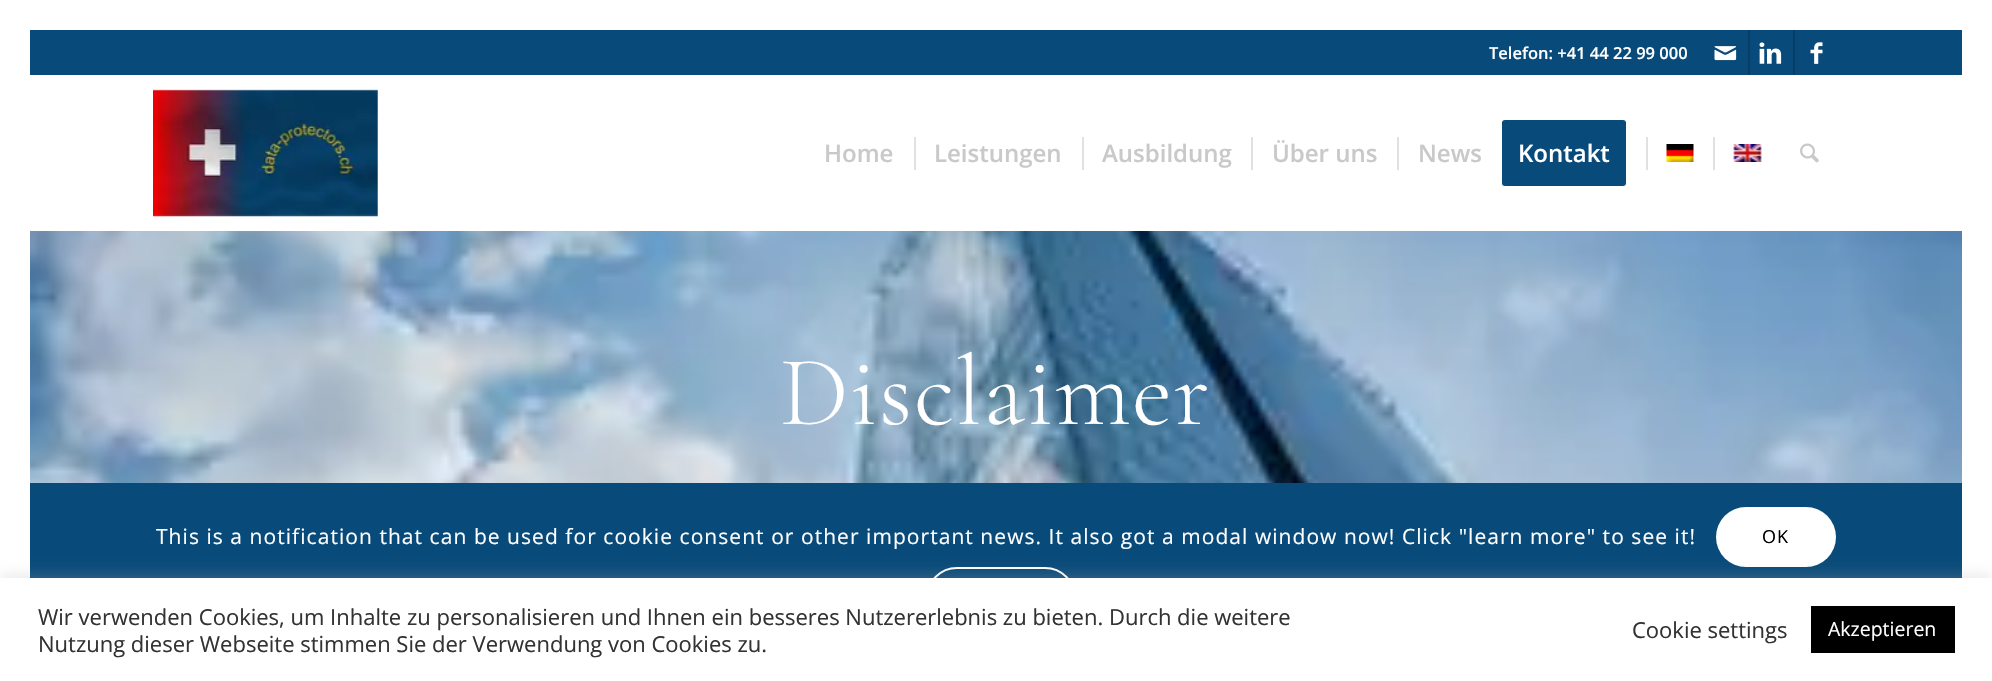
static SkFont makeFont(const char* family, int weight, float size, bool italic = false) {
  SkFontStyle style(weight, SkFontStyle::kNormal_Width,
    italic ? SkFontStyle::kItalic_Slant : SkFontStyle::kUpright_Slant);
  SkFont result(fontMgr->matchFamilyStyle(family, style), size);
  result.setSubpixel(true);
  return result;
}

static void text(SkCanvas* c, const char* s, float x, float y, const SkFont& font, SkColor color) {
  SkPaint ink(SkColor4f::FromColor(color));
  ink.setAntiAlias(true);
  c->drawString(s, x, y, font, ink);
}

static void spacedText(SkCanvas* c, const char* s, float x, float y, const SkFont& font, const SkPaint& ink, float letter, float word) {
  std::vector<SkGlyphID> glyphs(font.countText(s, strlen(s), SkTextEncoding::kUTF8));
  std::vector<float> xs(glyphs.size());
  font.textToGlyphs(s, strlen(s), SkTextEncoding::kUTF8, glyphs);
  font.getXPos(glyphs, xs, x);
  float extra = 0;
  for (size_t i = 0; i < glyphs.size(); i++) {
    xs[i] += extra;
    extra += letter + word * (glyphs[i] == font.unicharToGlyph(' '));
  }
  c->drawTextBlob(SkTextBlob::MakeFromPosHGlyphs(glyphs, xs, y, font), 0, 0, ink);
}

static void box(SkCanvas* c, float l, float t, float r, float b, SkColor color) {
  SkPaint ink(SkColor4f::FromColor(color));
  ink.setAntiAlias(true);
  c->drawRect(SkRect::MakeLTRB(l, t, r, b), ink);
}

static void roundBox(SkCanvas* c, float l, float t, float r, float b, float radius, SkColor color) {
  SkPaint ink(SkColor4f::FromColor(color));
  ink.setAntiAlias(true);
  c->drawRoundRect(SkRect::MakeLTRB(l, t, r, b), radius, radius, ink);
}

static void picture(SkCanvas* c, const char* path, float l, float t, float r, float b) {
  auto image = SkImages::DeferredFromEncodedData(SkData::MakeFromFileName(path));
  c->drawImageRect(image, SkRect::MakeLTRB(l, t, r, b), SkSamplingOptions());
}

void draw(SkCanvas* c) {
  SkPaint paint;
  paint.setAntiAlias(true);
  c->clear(0xffffffff);
  box(c, 30, 30, 1962, 75, 0xff084a79);
  SkFont face1 = makeFont("Open Sans", 600, 16.5f);
  text(c, "Telefon: +41 44 22 99 000", 1489, 59, face1, 0xffffffff);
  box(c, 1748, 30, 1750, 75, 0xff073e63);
  picture(c, "img_01.png", 1714, 46, 1737, 61);
  box(c, 1793, 30, 1795, 75, 0xff073e63);
  picture(c, "img_02.png", 1759, 42, 1782, 64);
  picture(c, "img_03.png", 1810, 42, 1823, 64);
  picture(c, "img_04.png", 153, 89, 378, 217);
  SkFont face2 = makeFont("Open Sans", 600, 24);
  text(c, "Home", 824, 162, face2, 0xffc9c9c9);
  text(c, "Leistungen", 934, 162, face2, 0xffc9c9c9);
  box(c, 914, 137, 916, 170, 0xffe1e1e1);
  text(c, "Ausbildung", 1102, 162, face2, 0xffc9c9c9);
  box(c, 1082, 137, 1084, 170, 0xffe1e1e1);
  text(c, "Über uns", 1272, 162, face2, 0xffc9c9c9);
  box(c, 1251, 137, 1253, 170, 0xffe1e1e1);
  text(c, "News", 1418, 162, face2, 0xffc9c9c9);
  box(c, 1397, 137, 1399, 170, 0xffe1e1e1);
  paint.setColor(0xff084a79);
  c->drawRoundRect(SkRect::MakeLTRB(1503.5f, 121.5f, 1624.5f, 184.5f), 1.5f, 1.5f, paint);
  paint.setStyle(SkPaint::kStroke_Style);
  paint.setStrokeWidth(3);
  c->drawRoundRect(SkRect::MakeLTRB(1503.5f, 121.5f, 1624.5f, 184.5f), 1.5f, 1.5f, paint);
  text(c, "Kontakt", 1518, 162, face2, 0xffffffff);
  box(c, 1646, 137, 1648, 170, 0xffe1e1e1);
  picture(c, "img_05.png", 1666, 144, 1694, 162);
  box(c, 1713, 137, 1715, 170, 0xffe1e1e1);
  picture(c, "img_06.png", 1733, 144, 1762, 162);
  picture(c, "img_07.png", 1800, 143, 1819, 163);
  picture(c, "img_08.png", 30, 231, 1962, 483);
  SkFont face3 = makeFont("Cormorant Garamond", 300, 99.5f);
  paint.setStyle(SkPaint::kFill_Style);
  paint.setColor(0xffffffff);
  spacedText(c, "Disclaimer", 780, 424, face3, paint, 1.5f, 0);
  box(c, 30, 483, 1962, 578, 0xff084a79);
  SkFont face4 = makeFont("Open Sans", 400, 21);
  spacedText(c, "This is a notification that can be used for cookie consent or other important news. It also got a modal window now! Click \"learn more\" to see it!", 156, 544, face4, paint, 1.05f, 0);
  roundBox(c, 1716, 507, 1836, 567, 30, 0xffffffff);
  SkFont face5 = makeFont("Open Sans", 400, 18);
  paint.setColor(0xff000000);
  spacedText(c, "OK", 1762, 543, face5, paint, 1, 0);
  paint.setStyle(SkPaint::kStroke_Style);
  paint.setStrokeWidth(2);
  paint.setColor(0xffffffff);
  c->drawRoundRect(SkRect::MakeLTRB(927, 568, 1075, 628), 30, 30, paint);
  paint.setStyle(SkPaint::kFill_Style);
  paint.setColor(0x4dacabab);
  paint.setMaskFilter(SkMaskFilter::MakeBlur(kNormal_SkBlurStyle, 7.5f));
  c->drawRect(SkRect::MakeLTRB(0, 576, 1992, 680), paint);
  paint.setMaskFilter(nullptr);
  box(c, 0, 578, 1992, 681, 0xffffffff);
  SkFont face6 = makeFont("Open Sans", 400, 22);
  text(c, "Wir verwenden Cookies, um Inhalte zu personalisieren und Ihnen ein besseres Nutzererlebnis zu bieten. Durch die weitere", 38, 625, face6, 0xff333333);
  text(c, "Nutzung dieser Webseite stimmen Sie der Verwendung von Cookies zu.", 38, 652, face6, 0xff333333);
  text(c, "Cookie settings", 1632, 638, face6, 0xff333333);
  box(c, 1811, 606, 1955, 653, 0xff000000);
  SkFont face7 = makeFont("Open Sans", 400, 19.5f);
  text(c, "Akzeptieren", 1828, 636, face7, 0xffffffff);
}
